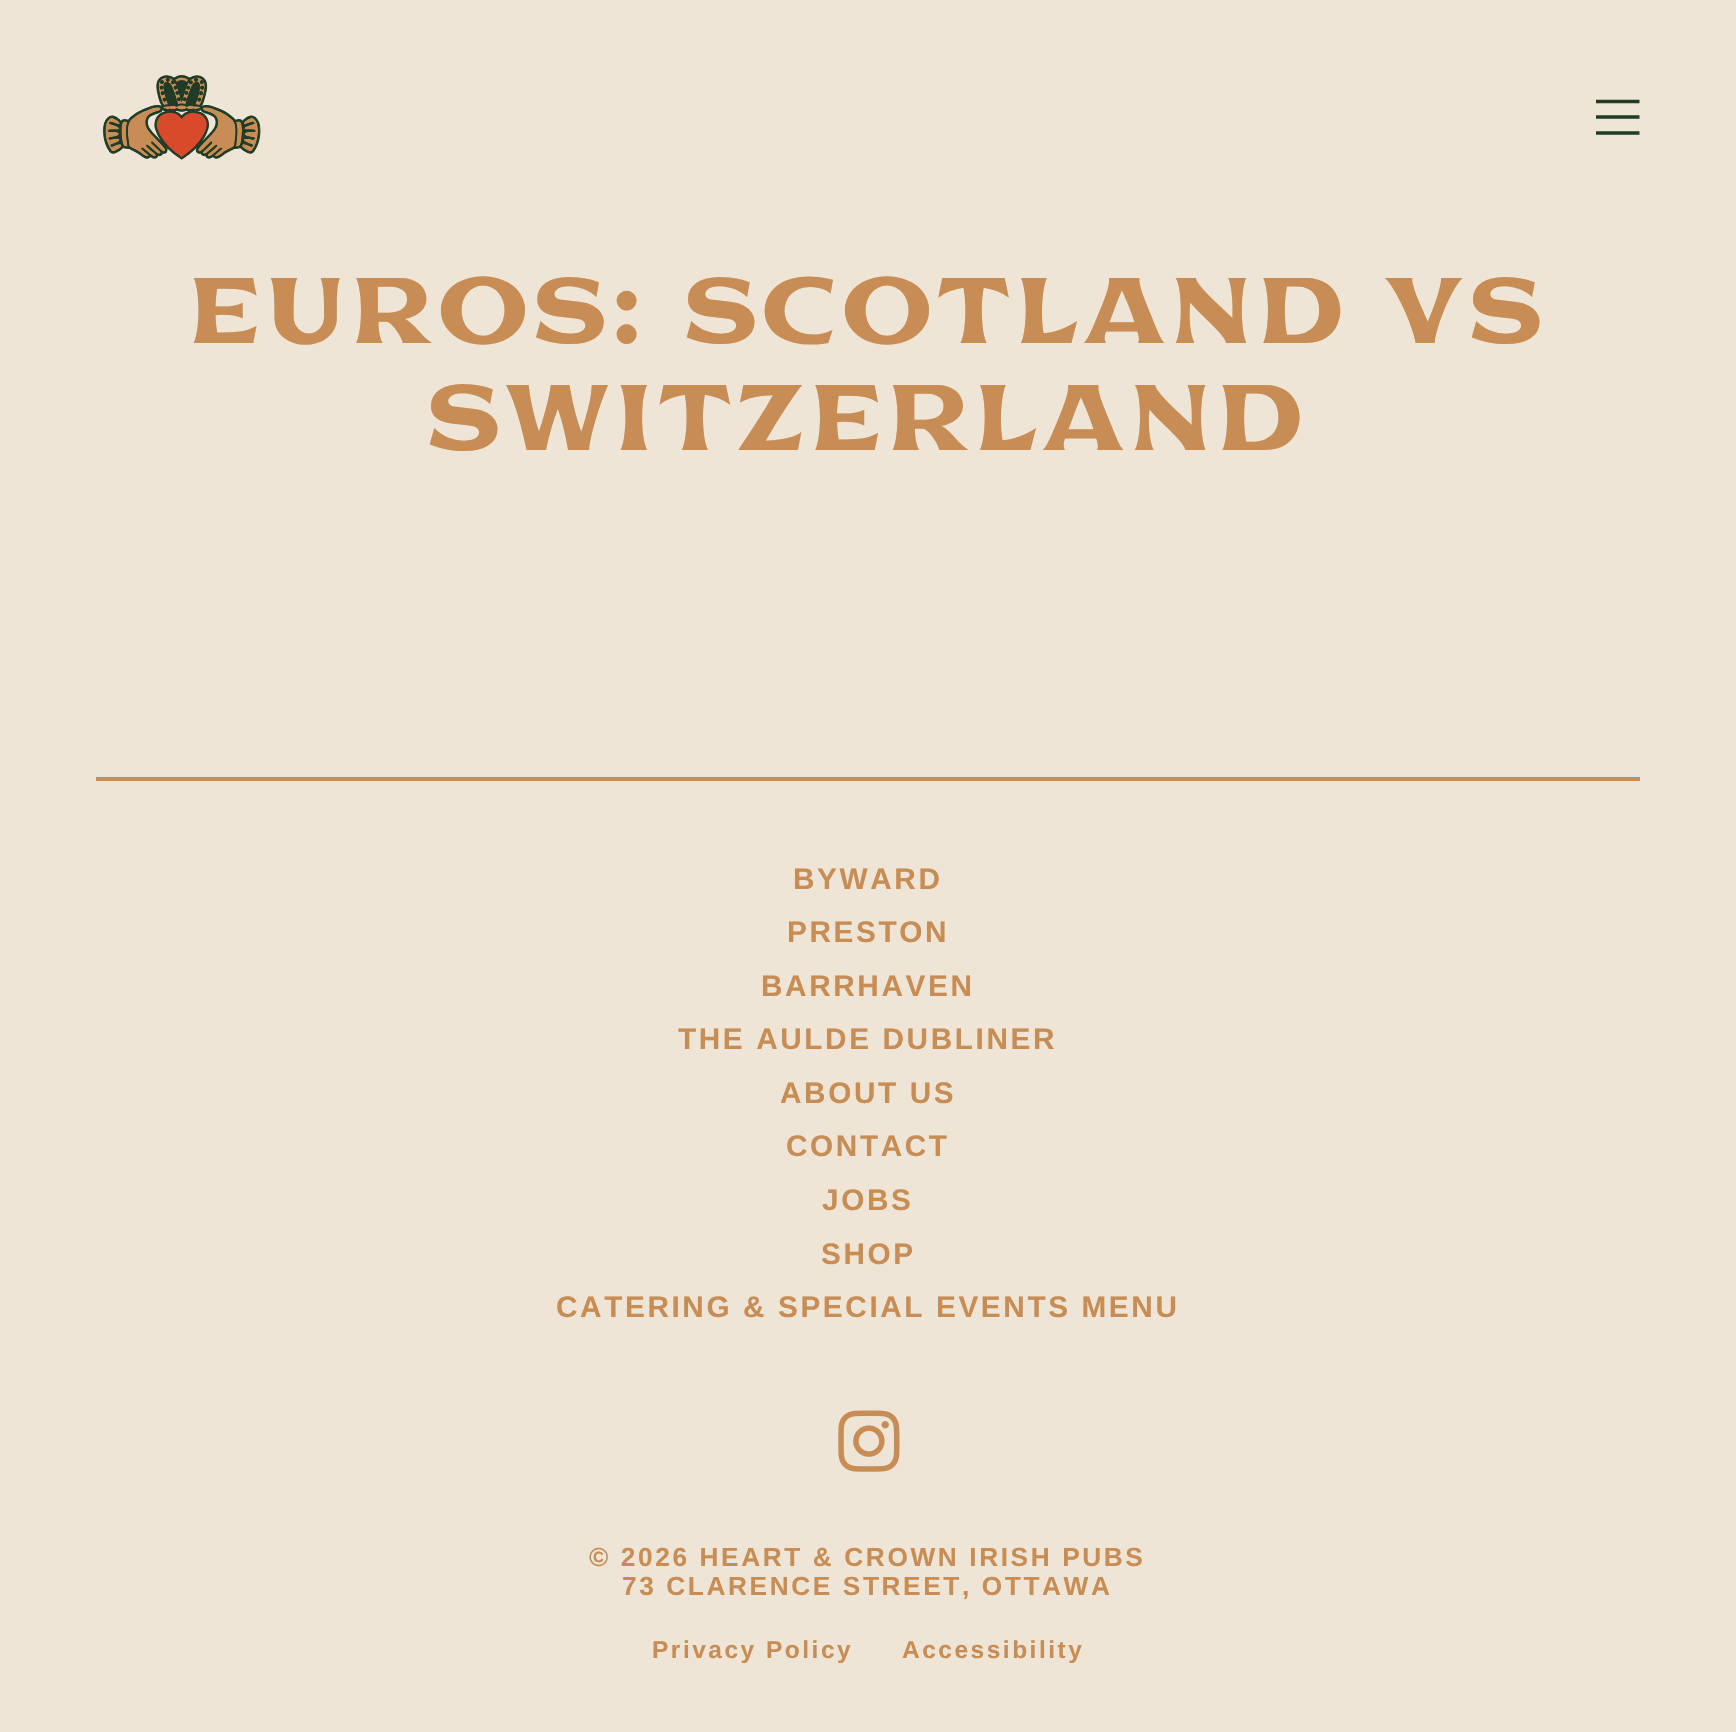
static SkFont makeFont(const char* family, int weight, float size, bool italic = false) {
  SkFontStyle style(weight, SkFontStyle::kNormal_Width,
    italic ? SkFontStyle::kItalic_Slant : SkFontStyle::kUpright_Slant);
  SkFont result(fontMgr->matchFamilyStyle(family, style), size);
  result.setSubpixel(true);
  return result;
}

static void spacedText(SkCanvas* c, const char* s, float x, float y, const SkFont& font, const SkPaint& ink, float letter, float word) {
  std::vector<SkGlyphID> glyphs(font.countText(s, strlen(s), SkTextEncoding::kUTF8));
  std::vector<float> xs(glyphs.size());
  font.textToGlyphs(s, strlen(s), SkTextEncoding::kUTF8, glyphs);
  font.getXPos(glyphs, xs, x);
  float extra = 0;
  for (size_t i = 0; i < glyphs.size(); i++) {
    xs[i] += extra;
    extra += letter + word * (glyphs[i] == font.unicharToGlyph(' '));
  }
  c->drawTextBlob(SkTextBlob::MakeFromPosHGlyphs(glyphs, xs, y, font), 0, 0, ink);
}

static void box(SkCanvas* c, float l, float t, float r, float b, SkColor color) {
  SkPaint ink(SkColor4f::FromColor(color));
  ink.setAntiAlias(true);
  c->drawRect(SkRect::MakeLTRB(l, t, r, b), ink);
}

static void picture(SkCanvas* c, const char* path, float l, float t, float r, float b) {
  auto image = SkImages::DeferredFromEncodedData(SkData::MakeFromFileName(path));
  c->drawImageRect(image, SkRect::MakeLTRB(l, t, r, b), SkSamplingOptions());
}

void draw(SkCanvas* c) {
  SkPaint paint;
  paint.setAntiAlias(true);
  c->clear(0xffefe5d6);
  picture(c, "img_01.png", 103, 75, 261, 160);
  paint.setStyle(SkPaint::kStroke_Style);
  paint.setStrokeWidth(3.5f);
  paint.setColor(0xff203c28);
  c->drawPath(SkPathBuilder().moveTo(1596, 101.5f).lineTo(1639.5f, 101.5f).moveTo(1596, 117).lineTo(1639.5f, 117).moveTo(1596, 133).lineTo(1639.5f, 133).detach(), paint);
  SkFont face1 = makeFont("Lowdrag", 400, 92.75f);
  paint.setStyle(SkPaint::kFill_Style);
  paint.setColor(0xffc78d54);
  spacedText(c, "EUROS: SCOTLAND VS", 189, 343, face1, paint, 7.4f, 0);
  spacedText(c, "SWITZERLAND", 428, 450, face1, paint, 7.4f, 0);
  box(c, 96, 777, 1640, 781, 0xffc78d54);
  SkFont face2 = makeFont("Liberation Sans", 700, 29.75f);
  spacedText(c, "BYWARD", 793, 889, face2, paint, 2.6f, 0);
  spacedText(c, "PRESTON", 787, 942, face2, paint, 2.6f, 0);
  spacedText(c, "BARRHAVEN", 761, 996, face2, paint, 2.6f, 0);
  spacedText(c, "THE AULDE DUBLINER", 678, 1049, face2, paint, 2.6f, 0);
  spacedText(c, "ABOUT US", 780, 1103, face2, paint, 2.6f, 0);
  spacedText(c, "CONTACT", 786, 1156, face2, paint, 2.6f, 0);
  spacedText(c, "JOBS", 822, 1210, face2, paint, 2.6f, 0);
  spacedText(c, "SHOP", 821, 1264, face2, paint, 2.6f, 0);
  spacedText(c, "CATERING & SPECIAL EVENTS MENU", 556, 1317, face2, paint, 2.6f, 0);
  picture(c, "img_02.png", 838, 1410, 900, 1472);
  SkFont face3 = makeFont("Liberation Sans", 700, 26.25f);
  spacedText(c, "© 2026 HEART & CROWN IRISH PUBS", 589, 1566, face3, paint, 2.6f, 0);
  spacedText(c, "73 CLARENCE STREET, OTTAWA", 622, 1595, face3, paint, 2.6f, 0);
  SkFont face4 = makeFont("Liberation Sans", 700, 24.5f);
  spacedText(c, "Privacy Policy", 652, 1658, face4, paint, 2.5f, 0);
  spacedText(c, "Accessibility", 902, 1658, face4, paint, 2.5f, 0);
}
